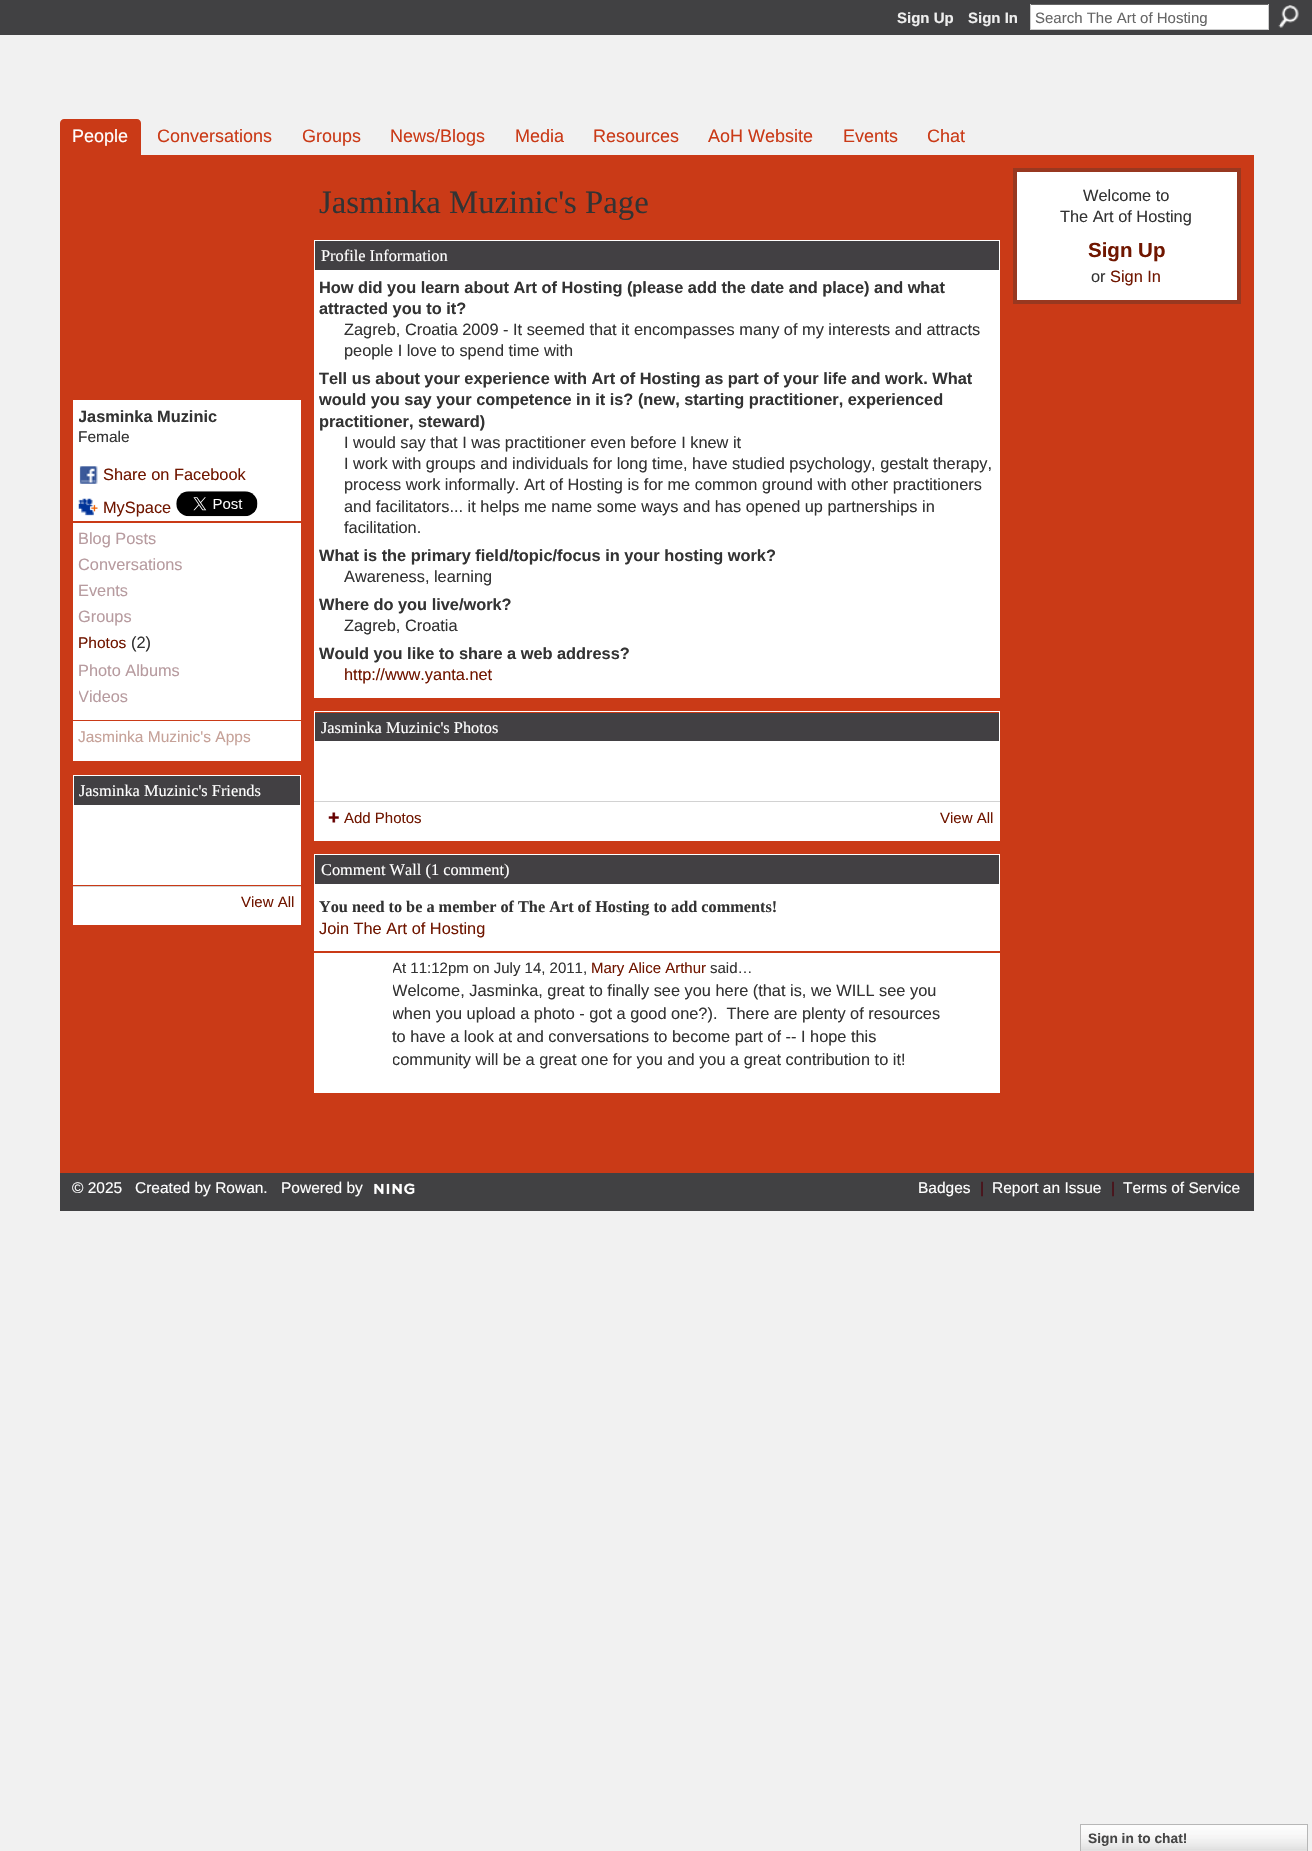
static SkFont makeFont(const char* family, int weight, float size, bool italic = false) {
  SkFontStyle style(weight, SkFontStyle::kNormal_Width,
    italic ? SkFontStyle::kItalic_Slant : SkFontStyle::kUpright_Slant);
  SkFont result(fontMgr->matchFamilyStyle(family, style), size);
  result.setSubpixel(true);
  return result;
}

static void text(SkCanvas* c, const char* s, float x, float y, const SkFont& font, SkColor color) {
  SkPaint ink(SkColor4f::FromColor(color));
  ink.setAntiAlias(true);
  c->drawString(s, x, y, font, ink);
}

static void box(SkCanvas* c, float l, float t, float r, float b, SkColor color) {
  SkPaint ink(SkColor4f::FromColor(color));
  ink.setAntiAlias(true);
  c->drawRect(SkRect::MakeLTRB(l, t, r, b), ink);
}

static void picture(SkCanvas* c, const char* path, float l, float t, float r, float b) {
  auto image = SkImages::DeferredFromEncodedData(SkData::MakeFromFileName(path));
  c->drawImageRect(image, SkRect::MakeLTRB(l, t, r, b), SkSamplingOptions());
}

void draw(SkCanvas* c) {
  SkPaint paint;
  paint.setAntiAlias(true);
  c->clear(0xfff1f1f1);
  box(c, 0, 0, 1312, 35, 0xff414143);
  SkFont face1 = makeFont("Liberation Sans", 700, 15);
  text(c, "Sign Up", 897, 23, face1, 0xffeeeeee);
  text(c, "Sign In", 968, 23, face1, 0xffeeeeee);
  box(c, 1031, 5, 1268, 29, 0xffffffff);
  box(c, 1030, 4, 1269, 5, 0xff666666);
  box(c, 1268, 4, 1269, 30, 0xffcccccc);
  box(c, 1030, 29, 1269, 30, 0xffcccccc);
  box(c, 1030, 4, 1031, 30, 0xffcccccc);
  SkFont face2 = makeFont("Liberation Sans", 400, 15);
  text(c, "Search The Art of Hosting", 1035, 23, face2, 0xff666666);
  picture(c, "img_01.png", 1278, 5, 1299, 28);
  paint.setColor(0xffca3a17);
  c->drawPath(SkPathBuilder().moveTo(64, 119).lineTo(137, 119).cubicTo(139, 119, 141, 121, 141, 123).lineTo(141, 155).lineTo(60, 155).lineTo(60, 123).cubicTo(60, 121, 62, 119, 64, 119).close().detach(), paint);
  SkFont face3 = makeFont("Liberation Sans", 400, 18);
  text(c, "People", 72, 142, face3, 0xffffffff);
  text(c, "Conversations", 157, 142, face3, 0xffca3a17);
  text(c, "Groups", 302, 142, face3, 0xffca3a17);
  text(c, "News/Blogs", 390, 142, face3, 0xffca3a17);
  text(c, "Media", 515, 142, face3, 0xffca3a17);
  text(c, "Resources", 593, 142, face3, 0xffca3a17);
  text(c, "AoH Website", 708, 142, face3, 0xffca3a17);
  text(c, "Events", 843, 142, face3, 0xffca3a17);
  text(c, "Chat", 927, 142, face3, 0xffca3a17);
  box(c, 60, 155, 1254, 1173, 0xffca3a17);
  box(c, 73, 400, 301, 521, 0xffffffff);
  c->save();
  c->clipRect(SkRect::MakeLTRB(79, 406, 295, 428));
  SkFont face4 = makeFont("Liberation Sans", 700, 16.35f);
  text(c, "Jasminka Muzinic", 78, 422, face4, 0xff333333);
  c->restore();
  SkFont face5 = makeFont("Liberation Sans", 400, 15.5f);
  text(c, "Female", 78, 442, face5, 0xff333333);
  picture(c, "img_02.png", 79, 466, 98, 484);
  SkFont face6 = makeFont("Liberation Sans", 400, 16.35f);
  text(c, "Share on Facebook", 103, 480, face6, 0xff701600);
  picture(c, "img_03.png", 78, 498, 98, 516);
  text(c, "MySpace", 103, 513, face6, 0xff701600);
  picture(c, "img_04.png", 176, 491, 258, 517);
  box(c, 73, 523, 301, 720, 0xffffffff);
  text(c, "Blog Posts", 78, 544, face6, 0xffb79b9f);
  text(c, "Conversations", 78, 570, face6, 0xffb79b9f);
  text(c, "Events", 78, 596, face6, 0xffb79b9f);
  text(c, "Groups", 78, 622, face6, 0xffb79b9f);
  text(c, "Photos", 78, 648, face5, 0xff701600);
  text(c, "(2)", 131, 648, face6, 0xff333333);
  text(c, "Photo Albums", 78, 676, face6, 0xffb79b9f);
  c->save();
  c->clipRect(SkRect::MakeLTRB(79, 688, 295, 706));
  text(c, "Videos", 78, 702, face6, 0xffb79b9f);
  c->restore();
  box(c, 73, 721, 301, 761, 0xffffffff);
  text(c, "Jasminka Muzinic's Apps", 78, 742, face5, 0xffc6a299);
  box(c, 74, 776, 300, 805, 0xff424043);
  box(c, 73, 775, 301, 776, 0xffffffff);
  box(c, 300, 775, 301, 805, 0xffffffff);
  box(c, 73, 775, 74, 805, 0xffffffff);
  SkFont face7 = makeFont("Liberation Serif", 400, 16.35f);
  text(c, "Jasminka Muzinic's Friends", 79, 796, face7, 0xffffffff);
  box(c, 73, 805, 301, 885, 0xffffffff);
  box(c, 73, 887, 301, 925, 0xffffffff);
  box(c, 73, 886, 301, 887, 0xffd2d2d2);
  text(c, "View All", 241, 907, face2, 0xff701600);
  SkFont face8 = makeFont("Liberation Serif", 400, 32.75f);
  text(c, "Jasminka Muzinic's Page", 319, 213, face8, 0xff333333);
  box(c, 315, 241, 999, 270, 0xff424043);
  box(c, 314, 240, 1000, 241, 0xffffffff);
  box(c, 999, 240, 1000, 270, 0xffffffff);
  box(c, 314, 240, 315, 270, 0xffffffff);
  text(c, "Profile Information", 321, 261, face7, 0xffffffff);
  box(c, 314, 270, 1000, 698, 0xffffffff);
  text(c, "How did you learn about Art of Hosting (please add the date and place) and what", 319, 293, face4, 0xff333333);
  text(c, "attracted you to it?", 319, 314, face4, 0xff333333);
  text(c, "Zagreb, Croatia 2009 - It seemed that it encompasses many of my interests and attracts", 344, 335, face6, 0xff333333);
  text(c, "people I love to spend time with", 344, 356, face6, 0xff333333);
  text(c, "Tell us about your experience with Art of Hosting as part of your life and work. What", 319, 384, face4, 0xff333333);
  text(c, "would you say your competence in it is? (new, starting practitioner, experienced", 319, 405, face4, 0xff333333);
  text(c, "practitioner, steward)", 319, 427, face4, 0xff333333);
  text(c, "I would say that I was practitioner even before I knew it", 344, 448, face6, 0xff333333);
  text(c, "I work with groups and individuals for long time, have studied psychology, gestalt therapy,", 344, 469, face6, 0xff333333);
  text(c, "process work informally. Art of Hosting is for me common ground with other practitioners", 344, 490, face6, 0xff333333);
  text(c, "and facilitators... it helps me name some ways and has opened up partnerships in", 344, 512, face6, 0xff333333);
  text(c, "facilitation.", 344, 533, face6, 0xff333333);
  text(c, "What is the primary field/topic/focus in your hosting work?", 319, 561, face4, 0xff333333);
  text(c, "Awareness, learning", 344, 582, face6, 0xff333333);
  text(c, "Where do you live/work?", 319, 610, face4, 0xff333333);
  text(c, "Zagreb, Croatia", 344, 631, face6, 0xff333333);
  text(c, "Would you like to share a web address?", 319, 659, face4, 0xff333333);
  text(c, "http://www.yanta.net", 344, 680, face6, 0xff701600);
  box(c, 315, 713, 999, 741, 0xff424043);
  box(c, 314, 711, 1000, 712, 0xffffffff);
  box(c, 999, 711, 1000, 741, 0xffffffff);
  box(c, 314, 711, 315, 741, 0xffffffff);
  text(c, "Jasminka Muzinic's Photos", 321, 733, face7, 0xffffffff);
  box(c, 314, 741, 1000, 801, 0xffffffff);
  box(c, 314, 802, 1000, 841, 0xffffffff);
  box(c, 314, 801, 1000, 802, 0xffd2d2d2);
  picture(c, "img_05.png", 328, 812, 339, 823);
  text(c, "Add Photos", 344, 823, face2, 0xff701600);
  text(c, "View All", 940, 823, face2, 0xff701600);
  box(c, 315, 855, 999, 884, 0xff424043);
  box(c, 314, 854, 1000, 855, 0xffffffff);
  box(c, 999, 854, 1000, 884, 0xffffffff);
  box(c, 314, 854, 315, 884, 0xffffffff);
  text(c, "Comment Wall (1 comment)", 321, 875, face7, 0xffffffff);
  box(c, 314, 884, 1000, 951, 0xffffffff);
  SkFont face9 = makeFont("Liberation Serif", 700, 16.25f);
  text(c, "You need to be a member of The Art of Hosting to add comments!", 319, 912, face9, 0xff333333);
  text(c, "Join The Art of Hosting", 319, 934, face6, 0xff701600);
  box(c, 314, 953, 1000, 1093, 0xffffffff);
  c->save();
  c->clipRect(SkRect::MakeLTRB(393, 959, 950, 979));
  text(c, "At 11:12pm on July 14, 2011,", 392, 973, face2, 0xff333333);
  c->restore();
  text(c, "Mary Alice Arthur", 591, 973, face2, 0xff701600);
  text(c, "said…", 710, 973, face2, 0xff333333);
  c->save();
  c->clipRect(SkRect::MakeLTRB(393, 980, 950, 1073));
  text(c, "Welcome, Jasminka, great to finally see you here (that is, we WILL see you", 392, 996, face6, 0xff333333);
  text(c, "when you upload a photo - got a good one?).  There are plenty of resources", 392, 1019, face6, 0xff333333);
  c->restore();
  text(c, "to have a look at and conversations to become part of -- I hope this", 392, 1042, face6, 0xff333333);
  c->save();
  c->clipRect(SkRect::MakeLTRB(393, 980, 950, 1073));
  text(c, "community will be a great one for you and you a great contribution to it!", 392, 1065, face6, 0xff333333);
  c->restore();
  paint.setColor(0xffffffff);
  c->drawRect(SkRect::MakeLTRB(1015, 170, 1239, 302), paint);
  paint.setStyle(SkPaint::kStroke_Style);
  paint.setStrokeWidth(4);
  paint.setColor(0xff983820);
  c->drawRect(SkRect::MakeLTRB(1015, 170, 1239, 302), paint);
  text(c, "Welcome to", 1083, 201, face6, 0xff333333);
  text(c, "The Art of Hosting", 1060, 222, face6, 0xff333333);
  SkFont face10 = makeFont("Liberation Sans", 700, 20.5f);
  text(c, "Sign Up", 1088, 257, face10, 0xff701600);
  text(c, "or", 1091, 282, face6, 0xff333333);
  text(c, "Sign In", 1110, 282, face6, 0xff701600);
  box(c, 60, 1173, 1254, 1211, 0xff414143);
  text(c, "© 2025", 72, 1193, face5, 0xffffffff);
  text(c, "Created by Rowan.", 135, 1193, face5, 0xffffffff);
  text(c, "Powered by", 281, 1193, face5, 0xffffffff);
  picture(c, "img_06.png", 374, 1183, 415, 1195);
  text(c, "Badges", 918, 1193, face5, 0xffffffff);
  text(c, "|", 980, 1193, face5, 0xff4c040e);
  text(c, "Report an Issue", 992, 1193, face5, 0xffffffff);
  text(c, "|", 1111, 1193, face5, 0xff4c040e);
  text(c, "Terms of Service", 1123, 1193, face5, 0xffffffff);
  picture(c, "img_07.png", 1081, 1825, 1307, 1851);
  paint.setStrokeWidth(1);
  paint.setColor(0xffb7b7b7);
  c->drawRect(SkRect::MakeLTRB(1080.5f, 1824.5f, 1307.5f, 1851.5f), paint);
  SkFont face11 = makeFont("Liberation Sans", 700, 13.75f);
  text(c, "Sign in to chat!", 1088, 1843, face11, 0xff454545);
}
